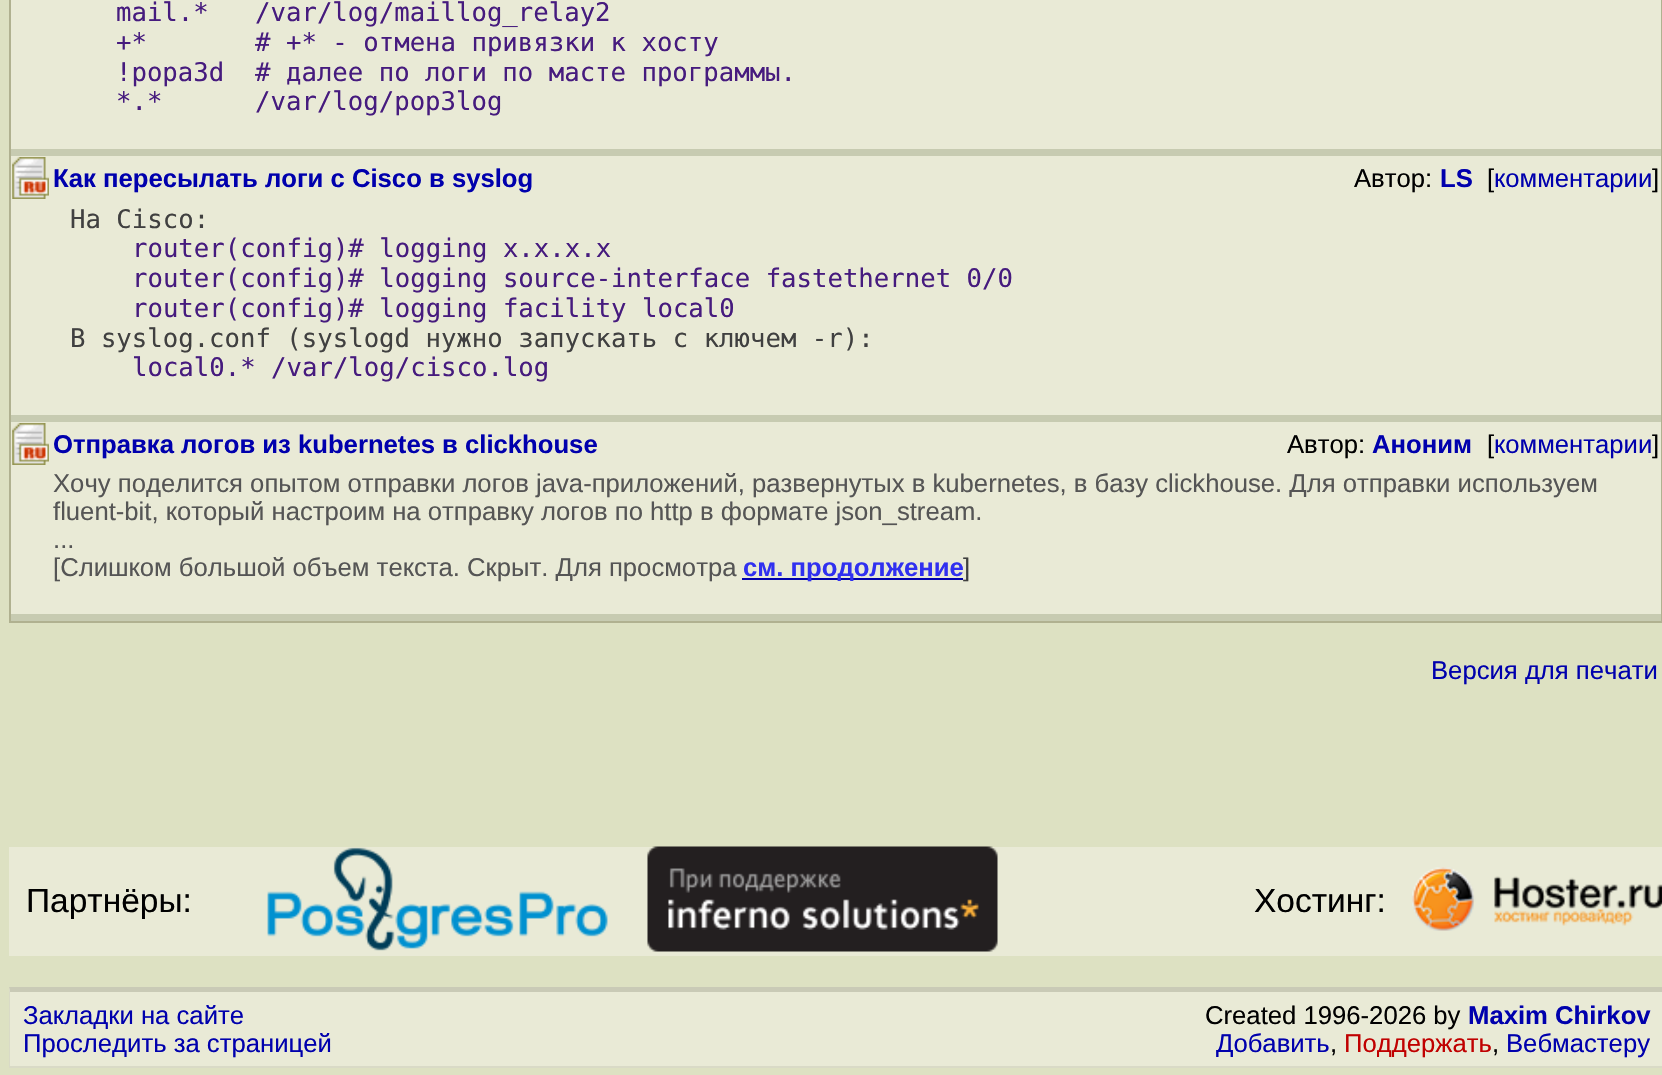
static SkFont makeFont(const char* family, int weight, float size, bool italic = false) {
  SkFontStyle style(weight, SkFontStyle::kNormal_Width,
    italic ? SkFontStyle::kItalic_Slant : SkFontStyle::kUpright_Slant);
  SkFont result(fontMgr->matchFamilyStyle(family, style), size);
  result.setSubpixel(true);
  return result;
}

static void text(SkCanvas* c, const char* s, float x, float y, const SkFont& font, SkColor color) {
  SkPaint ink(SkColor4f::FromColor(color));
  ink.setAntiAlias(true);
  c->drawString(s, x, y, font, ink);
}

static void box(SkCanvas* c, float l, float t, float r, float b, SkColor color) {
  SkPaint ink(SkColor4f::FromColor(color));
  ink.setAntiAlias(true);
  c->drawRect(SkRect::MakeLTRB(l, t, r, b), ink);
}

static void picture(SkCanvas* c, const char* path, float l, float t, float r, float b) {
  auto image = SkImages::DeferredFromEncodedData(SkData::MakeFromFileName(path));
  c->drawImageRect(image, SkRect::MakeLTRB(l, t, r, b), SkSamplingOptions());
}

void draw(SkCanvas* c) {
  SkPaint paint;
  paint.setAntiAlias(true);
  c->clear(0xffdde1c2);
  box(c, 9, 0, 1662, 623, 0xffb0b190);
  box(c, 11, 0, 1661, 614, 0xffe9ead6);
  SkFont face1 = makeFont("DejaVu Sans Mono", 400, 25.67f);
  text(c, "mail.*   /var/log/maillog_relay2", 116, 21, face1, 0xff461b7e);
  text(c, "+*       # +* - отмена привязки к хосту", 116, 51, face1, 0xff461b7e);
  text(c, "!popa3d  # далее по логи по масте программы.", 116, 81, face1, 0xff461b7e);
  text(c, "*.*      /var/log/pop3log", 116, 110, face1, 0xff461b7e);
  box(c, 11, 149, 1661, 156, 0xffc7cbb1);
  picture(c, "img_01.png", 12, 157, 49, 199);
  SkFont face2 = makeFont("Liberation Sans", 700, 25.67f);
  text(c, "Как пересылать логи с Cisco в syslog", 53, 187, face2, 0xff0000ad);
  SkFont face3 = makeFont("Liberation Sans", 400, 25.67f);
  text(c, "Автор:", 1354, 187, face3, 0xff000000);
  text(c, "LS", 1440, 187, face2, 0xff0000ad);
  text(c, "[", 1487, 187, face3, 0xff000000);
  text(c, "комментарии", 1494, 187, face3, 0xff0000ad);
  text(c, "]", 1652, 187, face3, 0xff000000);
  text(c, "На Cisco:", 70, 228, face1, 0xff404040);
  text(c, "router(config)# logging x.x.x.x", 132, 257, face1, 0xff461b7e);
  text(c, "router(config)# logging source-interface fastethernet 0/0", 132, 287, face1, 0xff461b7e);
  text(c, "router(config)# logging facility local0", 132, 317, face1, 0xff461b7e);
  text(c, "В syslog.conf (syslogd нужно запускать с ключем -r):", 70, 347, face1, 0xff404040);
  text(c, "local0.* /var/log/cisco.log", 132, 376, face1, 0xff461b7e);
  box(c, 11, 415, 1661, 422, 0xffc7cbb1);
  picture(c, "img_02.png", 12, 423, 49, 465);
  text(c, "Отправка логов из kubernetes в clickhouse", 53, 453, face2, 0xff0000ad);
  text(c, "Автор:", 1287, 453, face3, 0xff000000);
  text(c, "Аноним", 1372, 453, face2, 0xff0000ad);
  text(c, "[", 1487, 453, face3, 0xff000000);
  text(c, "комментарии", 1494, 453, face3, 0xff0000ad);
  text(c, "]", 1652, 453, face3, 0xff000000);
  text(c, "Хочу поделится опытом отправки логов java-приложений, развернутых в kubernetes, в базу clickhouse. Для отправки используем", 53, 492, face3, 0xff555555);
  text(c, "fluent-bit, который настроим на отправку логов по http в формате json_stream.", 53, 520, face3, 0xff555555);
  text(c, "...", 53, 548, face3, 0xff555555);
  text(c, "[Слишком большой объем текста. Скрыт. Для просмотра", 53, 576, face3, 0xff555555);
  box(c, 742, 578, 963, 580, 0xff0000ad);
  text(c, "см. продолжение", 743, 576, face2, 0xff3030f0);
  text(c, "]", 963, 576, face3, 0xff404040);
  box(c, 11, 614, 1661, 621, 0xffc7cbb1);
  text(c, "Версия для печати", 1431, 679, face3, 0xff0000ad);
  box(c, 9, 847, 1662, 956, 0xffe9ead6);
  SkFont face4 = makeFont("Liberation Sans", 400, 33.5f);
  text(c, "Партнёры:", 26, 912, face4, 0xff000000);
  picture(c, "img_03.png", 267, 847, 608, 951);
  picture(c, "img_04.png", 647, 846, 998, 952);
  text(c, "Хостинг:", 1254, 912, face4, 0xff000000);
  picture(c, "img_05.png", 1412, 867, 1662, 931);
  box(c, 9, 987, 1662, 1066, 0xffe9ead6);
  paint.setColor(0xffc9cab6);
  c->drawPath(SkPathBuilder().moveTo(9, 987).lineTo(1662, 987).lineTo(1662, 992).lineTo(10, 992).close().detach(), paint);
  box(c, 9, 1066, 1662, 1068, 0xffd9dac6);
  paint.setColor(0xffd9dac6);
  c->drawPath(SkPathBuilder().moveTo(9, 1068).lineTo(9, 987).lineTo(10, 992).lineTo(10, 1066).close().detach(), paint);
  text(c, "Закладки на сайте", 23, 1024, face3, 0xff0000ad);
  text(c, "Проследить за страницей", 23, 1052, face3, 0xff0000ad);
  text(c, "Created 1996-2026 by", 1205, 1024, face3, 0xff000000);
  text(c, "Maxim Chirkov", 1468, 1024, face2, 0xff0000ad);
  text(c, "Добавить", 1216, 1052, face3, 0xff0000ad);
  text(c, ",", 1330, 1052, face3, 0xff000000);
  text(c, "Поддержать", 1344, 1052, face3, 0xffc00000);
  text(c, ",", 1492, 1052, face3, 0xff000000);
  text(c, "Вебмастеру", 1506, 1052, face3, 0xff0000ad);
}
